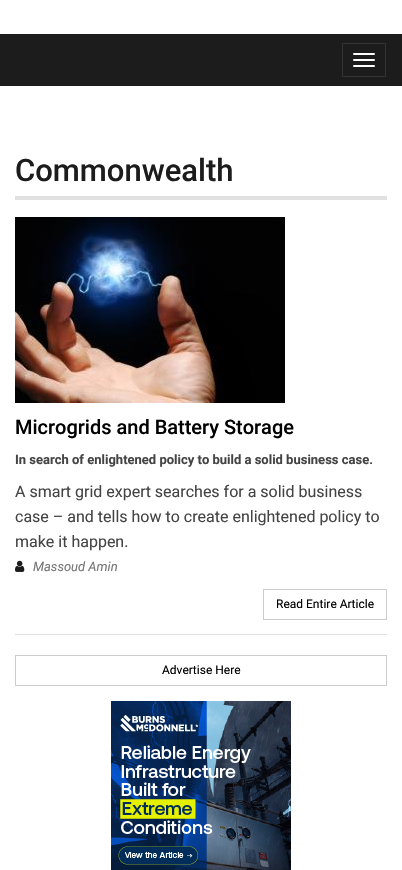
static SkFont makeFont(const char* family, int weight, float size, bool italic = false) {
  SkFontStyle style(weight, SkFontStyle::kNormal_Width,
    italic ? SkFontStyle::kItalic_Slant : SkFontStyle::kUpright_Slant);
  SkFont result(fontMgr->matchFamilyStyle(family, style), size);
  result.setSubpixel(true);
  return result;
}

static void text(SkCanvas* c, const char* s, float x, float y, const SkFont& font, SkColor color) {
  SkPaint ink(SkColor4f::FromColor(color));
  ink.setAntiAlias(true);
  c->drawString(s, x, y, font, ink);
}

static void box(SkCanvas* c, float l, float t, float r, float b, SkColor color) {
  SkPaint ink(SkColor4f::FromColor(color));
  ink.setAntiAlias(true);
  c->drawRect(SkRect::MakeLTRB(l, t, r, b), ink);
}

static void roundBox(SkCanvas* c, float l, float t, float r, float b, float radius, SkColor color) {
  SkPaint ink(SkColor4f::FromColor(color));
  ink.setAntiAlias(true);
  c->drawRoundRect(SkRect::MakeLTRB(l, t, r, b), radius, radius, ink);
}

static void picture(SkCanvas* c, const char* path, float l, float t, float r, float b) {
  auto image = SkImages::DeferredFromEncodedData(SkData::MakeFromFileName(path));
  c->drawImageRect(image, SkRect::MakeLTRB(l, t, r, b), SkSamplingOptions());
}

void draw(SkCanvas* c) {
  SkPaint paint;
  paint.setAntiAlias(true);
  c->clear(0xffffffff);
  box(c, 0, 34, 402, 86, 0xff1c1c1c);
  paint.setStyle(SkPaint::kStroke_Style);
  paint.setStrokeWidth(1);
  paint.setColor(0xff333333);
  c->drawRect(SkRect::MakeLTRB(342.5f, 43.5f, 385.5f, 76.5f), paint);
  roundBox(c, 353, 53, 375, 55, 1, 0xffffffff);
  roundBox(c, 353, 59, 375, 61, 1, 0xffffffff);
  roundBox(c, 353, 65, 375, 67, 1, 0xffffffff);
  box(c, 15, 196, 387, 200, 0xffe1e1e1);
  SkFont face1 = makeFont("Roboto", 500, 31);
  text(c, "Commonwealth", 15, 181, face1, 0xff1c1c1c);
  box(c, 15, 634, 387, 635, 0xffe1e1e1);
  picture(c, "img_01.png", 15, 217, 285, 403);
  SkFont face2 = makeFont("Roboto", 500, 20);
  text(c, "Microgrids and Battery Storage", 15, 434, face2, 0xff000000);
  SkFont face3 = makeFont("Roboto", 700, 13);
  text(c, "In search of enlightened policy to build a solid business case.", 15, 464, face3, 0xff444444);
  SkFont face4 = makeFont("Roboto", 400, 16);
  text(c, "A smart grid expert searches for a solid business", 15, 497, face4, 0xff444444);
  text(c, "case – and tells how to create enlightened policy to", 15, 522, face4, 0xff444444);
  text(c, "make it happen.", 15, 547, face4, 0xff444444);
  picture(c, "img_02.png", 15, 560, 25, 572);
  SkFont face5 = makeFont("Roboto", 400, 13, true);
  text(c, "Massoud Amin", 33, 571, face5, 0xff777777);
  paint.setColor(0xffcccccc);
  c->drawRect(SkRect::MakeLTRB(263.5f, 589.5f, 386.5f, 619.5f), paint);
  SkFont face6 = makeFont("Roboto", 400, 12);
  text(c, "Read Entire Article", 276, 608, face6, 0xff000000);
  c->drawRect(SkRect::MakeLTRB(15.5f, 655.5f, 386.5f, 685.5f), paint);
  text(c, "Advertise Here", 162, 674, face6, 0xff000000);
  picture(c, "img_03.png", 111, 701, 291, 870);
}
